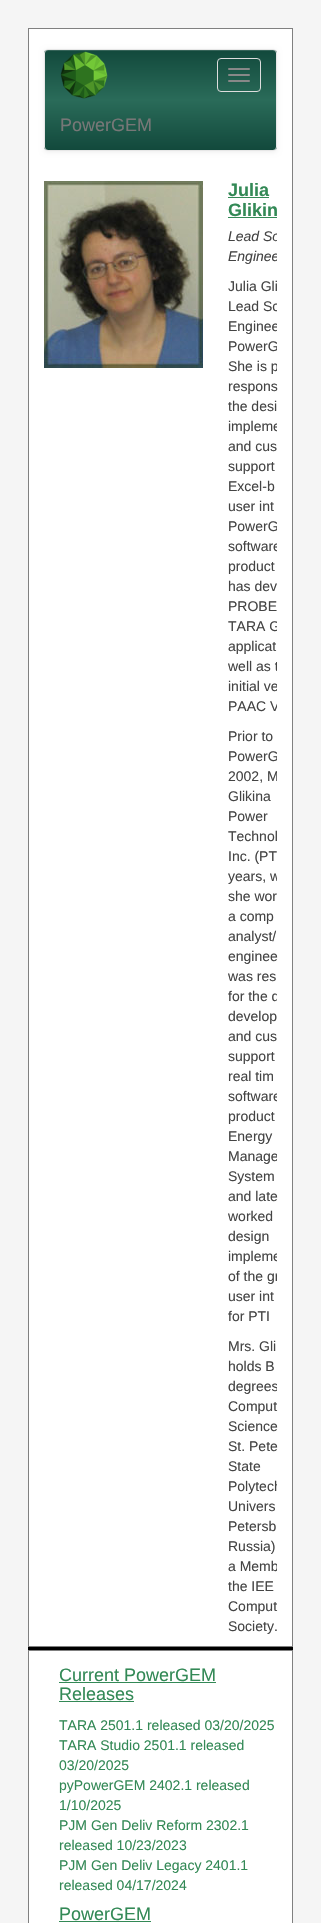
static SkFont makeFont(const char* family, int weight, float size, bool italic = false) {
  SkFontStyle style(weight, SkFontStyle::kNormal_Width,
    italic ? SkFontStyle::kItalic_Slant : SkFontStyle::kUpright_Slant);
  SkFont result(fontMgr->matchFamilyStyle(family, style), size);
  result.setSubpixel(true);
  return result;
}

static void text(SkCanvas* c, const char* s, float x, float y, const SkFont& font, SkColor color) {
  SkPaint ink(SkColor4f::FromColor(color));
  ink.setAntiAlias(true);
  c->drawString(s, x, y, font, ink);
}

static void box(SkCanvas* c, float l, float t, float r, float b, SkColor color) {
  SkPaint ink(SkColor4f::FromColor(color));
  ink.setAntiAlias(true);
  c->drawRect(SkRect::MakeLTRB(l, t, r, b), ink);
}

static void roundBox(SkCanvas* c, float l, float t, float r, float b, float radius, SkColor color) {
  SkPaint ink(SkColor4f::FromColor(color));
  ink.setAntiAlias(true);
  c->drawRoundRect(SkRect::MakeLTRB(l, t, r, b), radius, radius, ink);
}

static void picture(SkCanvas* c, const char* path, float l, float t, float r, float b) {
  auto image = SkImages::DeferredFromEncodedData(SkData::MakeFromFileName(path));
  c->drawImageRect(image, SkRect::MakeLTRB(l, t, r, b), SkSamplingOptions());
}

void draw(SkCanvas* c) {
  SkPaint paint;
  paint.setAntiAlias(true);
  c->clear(0xfff5f5f5);
  paint.setColor(0xffffffff);
  c->drawRect(SkRect::MakeLTRB(28.5f, 28.5f, 292.5f, 1646.5f), paint);
  paint.setStyle(SkPaint::kStroke_Style);
  paint.setStrokeWidth(1);
  paint.setColor(0xff808080);
  c->drawRect(SkRect::MakeLTRB(28.5f, 28.5f, 292.5f, 1646.5f), paint);
  paint.setStyle(SkPaint::kFill_Style);
  paint.setColor(0x12000000);
  paint.setMaskFilter(SkMaskFilter::MakeBlur(kNormal_SkBlurStyle, 2.5f));
  c->drawRoundRect(SkRect::MakeLTRB(44, 50, 277, 152), 4, 4, paint);
  paint.setMaskFilter(nullptr);
  c->save();
  c->clipPath(SkPathBuilder().moveTo(48, 49).lineTo(273, 49).cubicTo(275, 49, 277, 51, 277, 53).lineTo(277, 147).cubicTo(277, 149, 275, 151, 273, 151).lineTo(48, 151).cubicTo(46, 151, 44, 149, 44, 147).lineTo(44, 53).cubicTo(44, 51, 46, 49, 48, 49).close().detach(), true);
  {
    const SkColor colors[] = {0xff12493c, 0xff2a6b59, 0xff12493c};
    const float stops[] = {0, 0.5f, 1};
    const SkPoint ends[] = {{161, 50}, {161, 150}};
    paint.setShader(SkGradientShader::MakeLinear(ends, colors, stops, 3, SkTileMode::kClamp));
    paint.setAlpha(255);
  }
  c->drawRect(SkRect::MakeLTRB(44, 50, 277, 150), paint);
  c->restore();
  paint.setShader(nullptr);
  paint.setColor(0xff366459);
  c->drawPath(SkPathBuilder().moveTo(48, 51).lineTo(273, 51).cubicTo(275, 51, 276, 52, 276, 54).cubicTo(276, 52, 275, 50, 273, 50).lineTo(48, 50).cubicTo(46, 50, 45, 52, 45, 54).cubicTo(45, 52, 46, 51, 48, 51).close().detach(), paint);
  paint.setStyle(SkPaint::kStroke_Style);
  paint.setColor(0xffe7e7e7);
  c->drawRoundRect(SkRect::MakeLTRB(44.5f, 49.5f, 276.5f, 150.5f), 3.5f, 3.5f, paint);
  picture(c, "img_01.png", 60, 51, 108, 99);
  paint.setColor(0xffdddddd);
  c->drawRoundRect(SkRect::MakeLTRB(217.5f, 58.5f, 260.5f, 91.5f), 3.5f, 3.5f, paint);
  roundBox(c, 228, 68, 250, 70, 1, 0xff888888);
  roundBox(c, 228, 74, 250, 76, 1, 0xff888888);
  roundBox(c, 228, 80, 250, 82, 1, 0xff888888);
  SkFont face1 = makeFont("Liberation Sans", 400, 18);
  text(c, "PowerGEM", 60, 131, face1, 0xff777777);
  picture(c, "img_02.png", 44, 181, 203, 368);
  SkFont face2 = makeFont("Liberation Sans", 700, 18);
  text(c, "Julia", 228, 196, face2, 0xff338956);
  box(c, 228, 197, 269, 198, 0xff338956);
  text(c, "Glikin", 228, 216, face2, 0xff338956);
  box(c, 228, 217, 277, 218, 0xff338956);
  c->save();
  c->clipRect(SkRect::MakeLTRB(213, 181, 277, 1646));
  SkFont face3 = makeFont("Liberation Sans", 400, 14, true);
  text(c, "Lead So", 228, 241, face3, 0xff444444);
  text(c, "Enginee", 228, 261, face3, 0xff444444);
  c->restore();
  SkFont face4 = makeFont("Liberation Sans", 400, 14);
  text(c, "Julia Gli", 228, 291, face4, 0xff444444);
  c->save();
  c->clipRect(SkRect::MakeLTRB(213, 181, 277, 1646));
  text(c, "Lead So", 228, 311, face4, 0xff444444);
  text(c, "Enginee", 228, 331, face4, 0xff444444);
  text(c, "PowerG", 228, 351, face4, 0xff444444);
  text(c, "She is p", 228, 371, face4, 0xff444444);
  c->restore();
  text(c, "respons", 228, 391, face4, 0xff444444);
  text(c, "the desi", 228, 411, face4, 0xff444444);
  c->save();
  c->clipRect(SkRect::MakeLTRB(213, 181, 277, 1646));
  text(c, "impleme", 228, 431, face4, 0xff444444);
  c->restore();
  text(c, "and cus", 228, 451, face4, 0xff444444);
  text(c, "support", 228, 471, face4, 0xff444444);
  text(c, "Excel-b", 228, 491, face4, 0xff444444);
  text(c, "user int", 228, 511, face4, 0xff444444);
  c->save();
  c->clipRect(SkRect::MakeLTRB(213, 181, 277, 1646));
  text(c, "PowerG", 228, 531, face4, 0xff444444);
  text(c, "software", 228, 551, face4, 0xff444444);
  c->restore();
  text(c, "product", 228, 571, face4, 0xff444444);
  text(c, "has dev", 228, 591, face4, 0xff444444);
  text(c, "PROBE", 228, 611, face4, 0xff444444);
  c->save();
  c->clipRect(SkRect::MakeLTRB(213, 181, 277, 1646));
  text(c, "TARA G", 228, 631, face4, 0xff444444);
  c->restore();
  text(c, "applicat", 228, 651, face4, 0xff444444);
  c->save();
  c->clipRect(SkRect::MakeLTRB(213, 181, 277, 1646));
  text(c, "well as t", 228, 671, face4, 0xff444444);
  text(c, "initial ve", 228, 691, face4, 0xff444444);
  text(c, "PAAC V", 228, 711, face4, 0xff444444);
  c->restore();
  text(c, "Prior to", 228, 741, face4, 0xff444444);
  c->save();
  c->clipRect(SkRect::MakeLTRB(213, 181, 277, 1646));
  text(c, "PowerG", 228, 761, face4, 0xff444444);
  text(c, "2002, M", 228, 781, face4, 0xff444444);
  c->restore();
  text(c, "Glikina", 228, 801, face4, 0xff444444);
  text(c, "Power", 228, 821, face4, 0xff444444);
  text(c, "Technol", 228, 841, face4, 0xff444444);
  text(c, "Inc. (PT", 228, 861, face4, 0xff444444);
  c->save();
  c->clipRect(SkRect::MakeLTRB(213, 181, 277, 1646));
  text(c, "years, w", 228, 881, face4, 0xff444444);
  c->restore();
  text(c, "she wor", 228, 901, face4, 0xff444444);
  text(c, "a comp", 228, 921, face4, 0xff444444);
  text(c, "analyst/", 228, 941, face4, 0xff444444);
  text(c, "enginee", 228, 961, face4, 0xff444444);
  text(c, "was res", 228, 981, face4, 0xff444444);
  c->save();
  c->clipRect(SkRect::MakeLTRB(213, 181, 277, 1646));
  text(c, "for the d", 228, 1001, face4, 0xff444444);
  c->restore();
  text(c, "develop", 228, 1021, face4, 0xff444444);
  text(c, "and cus", 228, 1041, face4, 0xff444444);
  text(c, "support", 228, 1061, face4, 0xff444444);
  text(c, "real tim", 228, 1081, face4, 0xff444444);
  c->save();
  c->clipRect(SkRect::MakeLTRB(213, 181, 277, 1646));
  text(c, "software", 228, 1101, face4, 0xff444444);
  c->restore();
  text(c, "product", 228, 1121, face4, 0xff444444);
  text(c, "Energy", 228, 1141, face4, 0xff444444);
  c->save();
  c->clipRect(SkRect::MakeLTRB(213, 181, 277, 1646));
  text(c, "Manage", 228, 1161, face4, 0xff444444);
  c->restore();
  text(c, "System", 228, 1181, face4, 0xff444444);
  text(c, "and late", 228, 1201, face4, 0xff444444);
  text(c, "worked", 228, 1221, face4, 0xff444444);
  text(c, "design", 228, 1241, face4, 0xff444444);
  c->save();
  c->clipRect(SkRect::MakeLTRB(213, 181, 277, 1646));
  text(c, "impleme", 228, 1261, face4, 0xff444444);
  text(c, "of the gr", 228, 1281, face4, 0xff444444);
  c->restore();
  text(c, "user int", 228, 1301, face4, 0xff444444);
  text(c, "for PTI", 228, 1321, face4, 0xff444444);
  text(c, "Mrs. Gli", 228, 1351, face4, 0xff444444);
  text(c, "holds B", 228, 1371, face4, 0xff444444);
  c->save();
  c->clipRect(SkRect::MakeLTRB(213, 181, 277, 1646));
  text(c, "degrees", 228, 1391, face4, 0xff444444);
  c->restore();
  text(c, "Comput", 228, 1411, face4, 0xff444444);
  text(c, "Science", 228, 1431, face4, 0xff444444);
  text(c, "St. Pete", 228, 1451, face4, 0xff444444);
  text(c, "State", 228, 1471, face4, 0xff444444);
  c->save();
  c->clipRect(SkRect::MakeLTRB(213, 181, 277, 1646));
  text(c, "Polytech", 228, 1491, face4, 0xff444444);
  c->restore();
  text(c, "Univers", 228, 1511, face4, 0xff444444);
  text(c, "Petersb", 228, 1531, face4, 0xff444444);
  text(c, "Russia)", 228, 1551, face4, 0xff444444);
  c->save();
  c->clipRect(SkRect::MakeLTRB(213, 181, 277, 1646));
  text(c, "a Memb", 228, 1571, face4, 0xff444444);
  c->restore();
  text(c, "the IEE", 228, 1591, face4, 0xff444444);
  text(c, "Comput", 228, 1611, face4, 0xff444444);
  text(c, "Society.", 228, 1631, face4, 0xff444444);
  box(c, 28, 1647, 293, 1650, 0xff000000);
  paint.setStyle(SkPaint::kFill_Style);
  paint.setColor(0xffffffff);
  c->drawRect(SkRect::MakeLTRB(28.5f, 1650.5f, 292.5f, 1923.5f), paint);
  paint.setStyle(SkPaint::kStroke_Style);
  paint.setColor(0xff808080);
  c->drawRect(SkRect::MakeLTRB(28.5f, 1650.5f, 292.5f, 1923.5f), paint);
  text(c, "Current PowerGEM", 59, 1681, face1, 0xff338956);
  box(c, 59, 1682, 216, 1683, 0xff338956);
  text(c, "Releases", 59, 1700, face1, 0xff338956);
  box(c, 59, 1701, 134, 1702, 0xff338956);
  text(c, "TARA 2501.1 released 03/20/2025", 59, 1730, face4, 0xff338956);
  text(c, "TARA Studio 2501.1 released", 59, 1750, face4, 0xff338956);
  text(c, "03/20/2025", 59, 1770, face4, 0xff338956);
  text(c, "pyPowerGEM 2402.1 released", 59, 1790, face4, 0xff338956);
  text(c, "1/10/2025", 59, 1810, face4, 0xff338956);
  text(c, "PJM Gen Deliv Reform 2302.1", 59, 1830, face4, 0xff338956);
  text(c, "released 10/23/2023", 59, 1850, face4, 0xff338956);
  text(c, "PJM Gen Deliv Legacy 2401.1", 59, 1870, face4, 0xff338956);
  text(c, "released 04/17/2024", 59, 1890, face4, 0xff338956);
  text(c, "PowerGEM", 59, 1920, face1, 0xff338956);
  box(c, 59, 1921, 151, 1922, 0xff338956);
}
